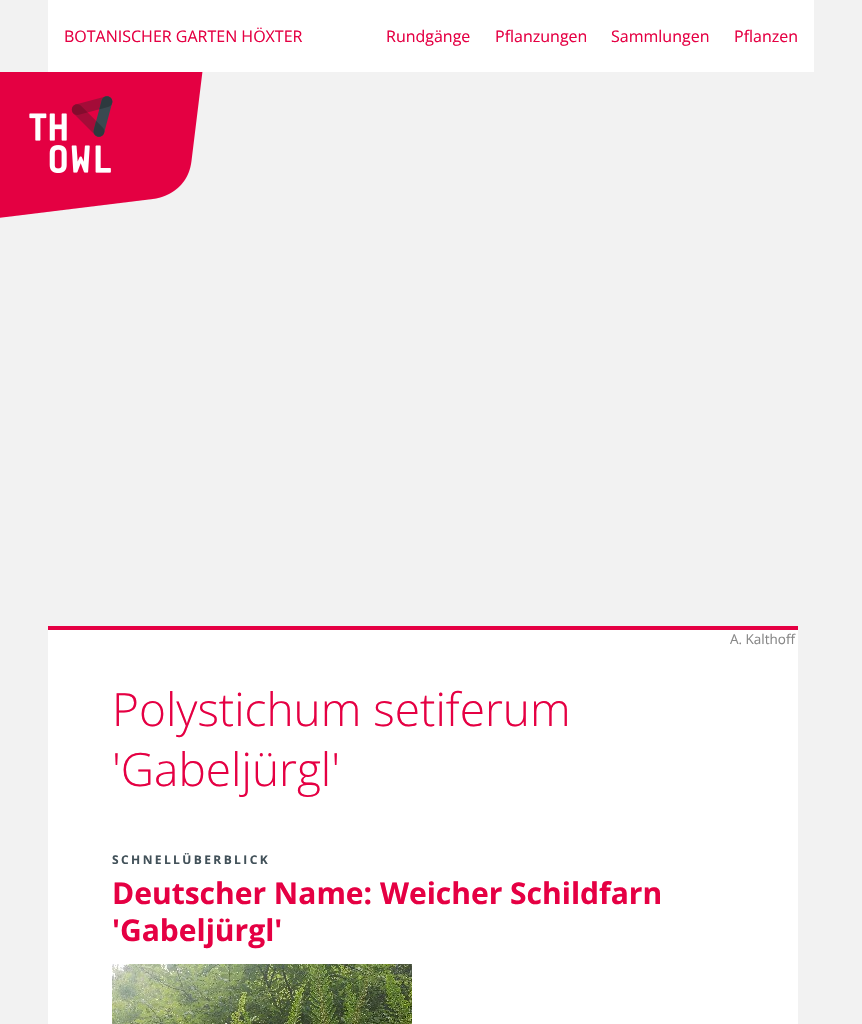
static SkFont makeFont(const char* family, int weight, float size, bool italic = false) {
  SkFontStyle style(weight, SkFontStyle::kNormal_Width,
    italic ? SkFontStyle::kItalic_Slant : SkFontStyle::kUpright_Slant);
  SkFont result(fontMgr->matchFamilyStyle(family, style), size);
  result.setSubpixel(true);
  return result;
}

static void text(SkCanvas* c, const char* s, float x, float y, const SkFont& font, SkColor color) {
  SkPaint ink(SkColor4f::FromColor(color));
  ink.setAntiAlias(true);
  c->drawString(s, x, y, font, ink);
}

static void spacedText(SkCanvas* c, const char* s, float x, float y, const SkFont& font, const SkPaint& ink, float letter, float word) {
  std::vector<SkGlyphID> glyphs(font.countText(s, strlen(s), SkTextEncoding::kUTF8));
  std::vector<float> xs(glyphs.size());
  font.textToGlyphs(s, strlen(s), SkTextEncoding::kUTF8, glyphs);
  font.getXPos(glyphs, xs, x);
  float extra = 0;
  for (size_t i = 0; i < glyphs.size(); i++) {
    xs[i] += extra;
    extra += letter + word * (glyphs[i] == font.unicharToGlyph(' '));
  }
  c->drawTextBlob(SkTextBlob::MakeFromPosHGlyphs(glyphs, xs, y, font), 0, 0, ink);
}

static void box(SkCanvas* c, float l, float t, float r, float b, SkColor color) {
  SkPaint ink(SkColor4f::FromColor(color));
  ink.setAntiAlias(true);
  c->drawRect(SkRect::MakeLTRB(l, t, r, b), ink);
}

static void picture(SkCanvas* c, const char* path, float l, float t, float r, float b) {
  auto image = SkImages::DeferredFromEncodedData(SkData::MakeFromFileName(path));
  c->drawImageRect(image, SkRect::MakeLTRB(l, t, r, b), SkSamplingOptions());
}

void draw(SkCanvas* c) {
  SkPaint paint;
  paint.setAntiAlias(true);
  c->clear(0xfff2f2f2);
  box(c, 48, 0, 814, 72, 0xffffffff);
  SkFont face1 = makeFont("Open Sans", 400, 16);
  text(c, "BOTANISCHER GARTEN HÖXTER", 64, 42, face1, 0xffe50043);
  text(c, "Rundgänge", 386, 42, face1, 0xffe50043);
  text(c, "Pflanzungen", 495, 42, face1, 0xffe50043);
  text(c, "Sammlungen", 611, 42, face1, 0xffe50043);
  text(c, "Pflanzen", 734, 42, face1, 0xffe50043);
  picture(c, "img_01.png", 0, 72, 203, 218);
  box(c, 48, 630, 798, 1024, 0xffffffff);
  box(c, 48, 626, 798, 630, 0xffe50043);
  SkFont face2 = makeFont("Open Sans", 400, 13.5f);
  text(c, "A. Kalthoff", 730, 644, face2, 0xff888888);
  SkFont face3 = makeFont("Open Sans", 300, 46);
  text(c, "Polystichum setiferum", 112, 726, face3, 0xffe50043);
  text(c, "'Gabeljürgl'", 112, 786, face3, 0xffe50043);
  SkFont face4 = makeFont("Open Sans", 700, 12);
  paint.setColor(0xff425159);
  spacedText(c, "SCHNELLÜBERBLICK", 112, 864, face4, paint, 2.4f, 0);
  SkFont face5 = makeFont("Open Sans", 700, 30);
  text(c, "Deutscher Name: Weicher Schildfarn", 112, 904, face5, 0xffe50043);
  text(c, "'Gabeljürgl'", 112, 941, face5, 0xffe50043);
  picture(c, "img_02.png", 112, 964, 412, 1024);
}
